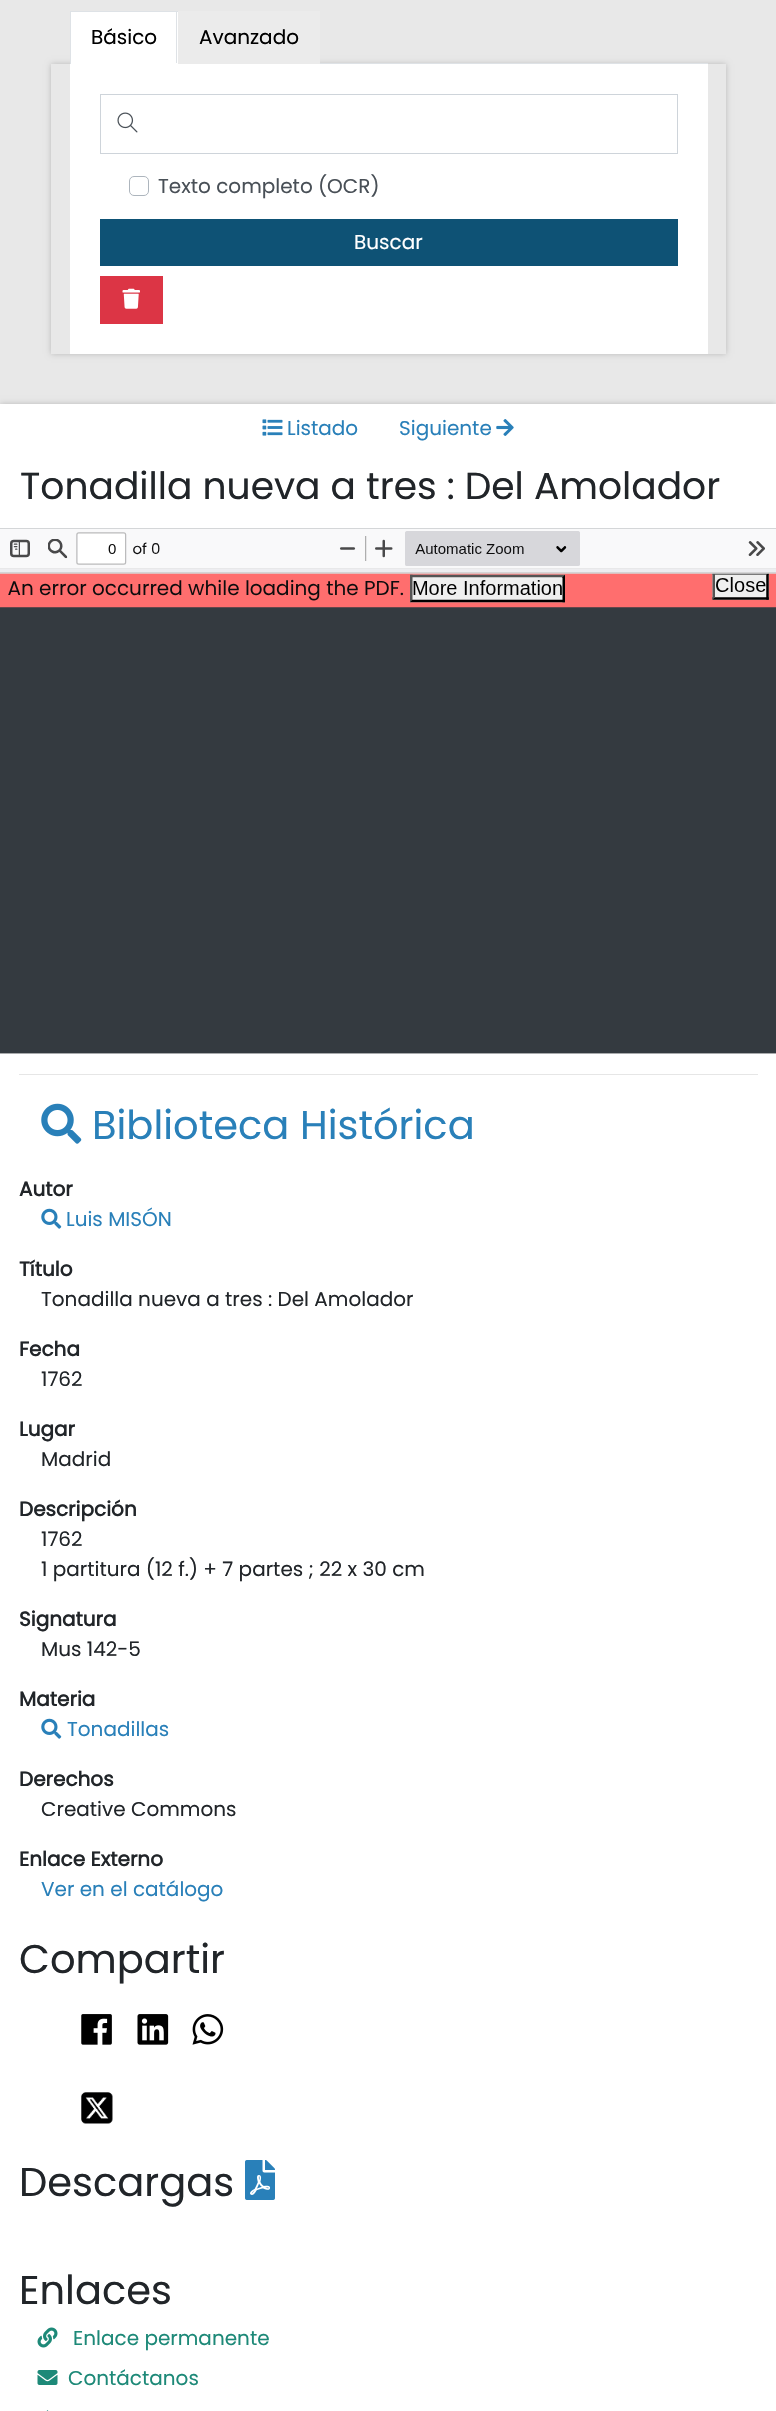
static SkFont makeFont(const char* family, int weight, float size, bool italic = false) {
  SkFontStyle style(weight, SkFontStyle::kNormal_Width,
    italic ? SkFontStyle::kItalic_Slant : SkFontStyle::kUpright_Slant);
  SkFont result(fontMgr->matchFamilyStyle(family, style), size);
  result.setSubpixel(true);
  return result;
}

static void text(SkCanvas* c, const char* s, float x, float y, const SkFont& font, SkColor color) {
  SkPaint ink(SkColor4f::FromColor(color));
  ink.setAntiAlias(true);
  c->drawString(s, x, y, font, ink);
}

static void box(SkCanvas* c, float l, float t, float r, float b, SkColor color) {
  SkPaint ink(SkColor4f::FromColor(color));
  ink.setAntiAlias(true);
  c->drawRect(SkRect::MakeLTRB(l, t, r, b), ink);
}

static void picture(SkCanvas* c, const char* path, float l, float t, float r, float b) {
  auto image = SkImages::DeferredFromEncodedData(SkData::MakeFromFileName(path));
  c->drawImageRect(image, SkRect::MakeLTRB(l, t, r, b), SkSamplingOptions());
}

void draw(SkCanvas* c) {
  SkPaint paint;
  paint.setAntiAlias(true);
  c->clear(0xffe8e8e8);
  c->save();
  c->clipPath(SkPathBuilder(SkPathFillType::kEvenOdd).moveTo(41, 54).lineTo(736, 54).lineTo(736, 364).lineTo(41, 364).close().moveTo(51, 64).lineTo(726, 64).lineTo(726, 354).lineTo(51, 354).close().detach(), true);
  paint.setColor(0x33000000);
  paint.setMaskFilter(SkMaskFilter::MakeBlur(kNormal_SkBlurStyle, 3));
  c->drawRect(SkRect::MakeLTRB(51, 64, 726, 354), paint);
  paint.setMaskFilter(nullptr);
  c->restore();
  box(c, 320, 63, 708, 64, 0xffdee2e6);
  box(c, 71, 12, 178, 63, 0xffffffff);
  box(c, 70, 11, 178, 12, 0xffdee2e6);
  box(c, 176, 11, 177, 64, 0xffdee2e6);
  box(c, 70, 63, 178, 64, 0xffffffff);
  box(c, 70, 11, 71, 64, 0xffdee2e6);
  SkFont face1 = makeFont("Poppins", 400, 20);
  text(c, "Básico", 91, 44, face1, 0xff000000);
  box(c, 178, 11, 320, 64, 0xffebebeb);
  text(c, "Avanzado", 199, 44, face1, 0xff000000);
  box(c, 70, 64, 708, 354, 0xffffffff);
  paint.setStyle(SkPaint::kStroke_Style);
  paint.setStrokeWidth(1);
  paint.setColor(0xffced4da);
  c->drawRect(SkRect::MakeLTRB(100.5f, 94.5f, 677.5f, 153.5f), paint);
  picture(c, "img_01.png", 117, 112, 138, 133);
  paint.setColor(0xffadb5bd);
  c->drawRoundRect(SkRect::MakeLTRB(129.5f, 176.5f, 148.5f, 195.5f), 4.5f, 4.5f, paint);
  text(c, "Texto completo (OCR)", 158, 193, face1, 0xff495057);
  box(c, 100, 219, 678, 266, 0xff0e5275);
  text(c, "Buscar", 354, 249, face1, 0xffffffff);
  box(c, 100, 276, 163, 324, 0xffdc3545);
  picture(c, "img_02.png", 122, 288, 140, 309);
  paint.setStyle(SkPaint::kFill_Style);
  paint.setColor(0x33000000);
  paint.setMaskFilter(SkMaskFilter::MakeBlur(kNormal_SkBlurStyle, 3));
  c->drawRect(SkRect::MakeLTRB(0, 404, 776, 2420), paint);
  paint.setMaskFilter(nullptr);
  box(c, 0, 404, 776, 2411, 0xffffffff);
  picture(c, "img_03.png", 262, 419, 283, 436);
  text(c, "Listado", 287, 435, face1, 0xff2980b9);
  text(c, "Siguiente", 399, 435, face1, 0xff2980b9);
  picture(c, "img_04.png", 496, 419, 514, 436);
  SkFont face2 = makeFont("Poppins", 400, 37.6f);
  text(c, "Tonadilla nueva a tres : Del Amolador", 20, 499, face2, 0xff212529);
  {
    const SkColor colors[] = {0xffe9e9e9, 0xffcdcdcd};
    const float stops[] = {0, 1};
    const SkPoint ends[] = {{388, 529}, {388, 1054}};
    paint.setShader(SkGradientShader::MakeLinear(ends, colors, stops, 2, SkTileMode::kClamp));
    paint.setAlpha(255);
  }
  c->drawRect(SkRect::MakeLTRB(0, 1053, 776, 1054), paint);
  picture(c, "img_05.png", 0, 528, 776, 1054);
  box(c, 19, 1074, 758, 1075, 0xffe6e6e6);
  picture(c, "img_06.png", 41, 1103, 82, 1144);
  SkFont face3 = makeFont("Poppins", 400, 40);
  text(c, "Biblioteca Histórica", 92, 1139, face3, 0xff2980b9);
  SkFont face4 = makeFont("Poppins", 700, 20);
  text(c, "Autor", 19, 1196, face4, 0xff212529);
  picture(c, "img_07.png", 41, 1208, 62, 1229);
  text(c, "Luis MISÓN", 66, 1226, face1, 0xff2980b9);
  text(c, "Título", 19, 1276, face4, 0xff212529);
  text(c, "Tonadilla nueva a tres : Del Amolador", 41, 1306, face1, 0xff212529);
  text(c, "Fecha", 19, 1356, face4, 0xff212529);
  text(c, "1762", 41, 1386, face1, 0xff212529);
  text(c, "Lugar", 19, 1436, face4, 0xff212529);
  text(c, "Madrid", 41, 1466, face1, 0xff212529);
  text(c, "Descripción", 19, 1516, face4, 0xff212529);
  text(c, "1762", 41, 1546, face1, 0xff212529);
  text(c, "1 partitura (12 f.) + 7 partes ; 22 x 30 cm", 41, 1576, face1, 0xff212529);
  text(c, "Signatura", 19, 1626, face4, 0xff212529);
  text(c, "Mus 142-5", 41, 1656, face1, 0xff212529);
  text(c, "Materia", 19, 1706, face4, 0xff212529);
  picture(c, "img_07.png", 41, 1718, 62, 1739);
  text(c, "Tonadillas", 67, 1736, face1, 0xff2980b9);
  text(c, "Derechos", 19, 1786, face4, 0xff212529);
  text(c, "Creative Commons", 41, 1816, face1, 0xff212529);
  text(c, "Enlace Externo", 19, 1866, face4, 0xff212529);
  text(c, "Ver en el catálogo", 41, 1896, face1, 0xff2980b9);
  text(c, "Compartir", 19, 1973, face3, 0xff212529);
  picture(c, "img_08.png", 81, 2014, 112, 2045);
  picture(c, "img_09.png", 137, 2014, 169, 2045);
  picture(c, "img_10.png", 192, 2014, 224, 2045);
  picture(c, "img_11.png", 81, 2092, 113, 2124);
  text(c, "Descargas", 19, 2196, face3, 0xff212529);
  picture(c, "img_12.png", 245, 2160, 275, 2200);
  text(c, "Enlaces", 19, 2304, face3, 0xff212529);
  picture(c, "img_13.png", 37, 2327, 58, 2348);
  text(c, "Enlace permanente", 73, 2345, face1, 0xff1d8978);
  picture(c, "img_14.png", 37, 2370, 58, 2385);
  text(c, "Contáctanos", 68, 2385, face1, 0xff1d8978);
  picture(c, "img_15.png", 46, 2410, 49, 2411);
}
